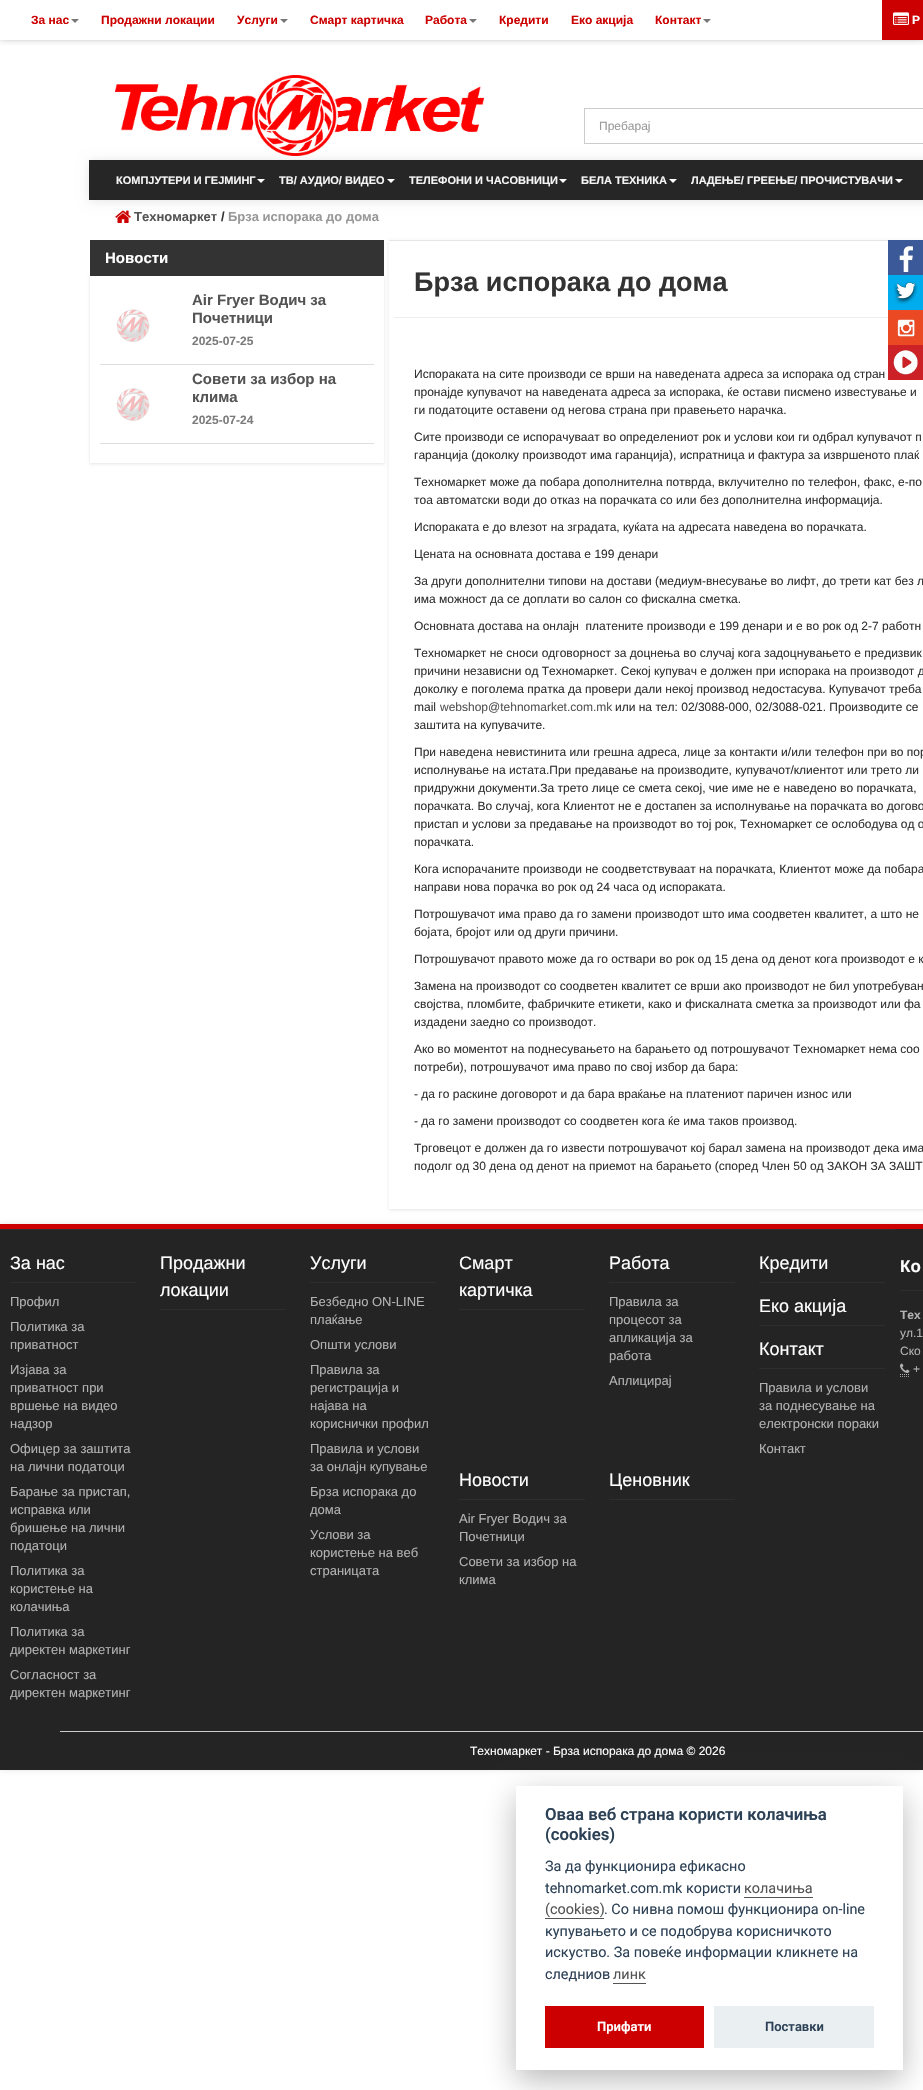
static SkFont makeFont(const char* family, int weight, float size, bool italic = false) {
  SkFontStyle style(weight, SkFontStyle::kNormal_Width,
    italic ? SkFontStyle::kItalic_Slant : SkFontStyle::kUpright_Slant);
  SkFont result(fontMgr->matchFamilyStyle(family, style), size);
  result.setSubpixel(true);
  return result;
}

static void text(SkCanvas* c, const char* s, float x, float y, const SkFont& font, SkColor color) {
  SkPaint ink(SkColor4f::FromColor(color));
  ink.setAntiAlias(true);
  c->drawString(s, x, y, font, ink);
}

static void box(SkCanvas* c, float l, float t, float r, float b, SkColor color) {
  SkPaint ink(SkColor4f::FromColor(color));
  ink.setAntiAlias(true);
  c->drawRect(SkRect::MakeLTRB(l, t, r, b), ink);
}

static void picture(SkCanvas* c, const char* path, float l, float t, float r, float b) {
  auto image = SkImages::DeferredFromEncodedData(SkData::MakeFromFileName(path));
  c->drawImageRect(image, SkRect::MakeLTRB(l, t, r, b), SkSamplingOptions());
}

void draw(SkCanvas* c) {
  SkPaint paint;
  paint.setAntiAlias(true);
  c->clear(0xffffffff);
  c->save();
  c->clipRect(SkRect::MakeLTRB(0, 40, 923, 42));
  paint.setColor(0x1a000000);
  paint.setMaskFilter(SkMaskFilter::MakeBlur(kNormal_SkBlurStyle, 2.5f));
  c->drawRect(SkRect::MakeLTRB(0, 0, 923, 40), paint);
  paint.setMaskFilter(nullptr);
  c->restore();
  c->save();
  c->clipRect(SkRect::MakeLTRB(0, 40, 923, 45));
  paint.setMaskFilter(SkMaskFilter::MakeBlur(kNormal_SkBlurStyle, 5));
  c->drawRect(SkRect::MakeLTRB(0, 1, 923, 41), paint);
  paint.setMaskFilter(nullptr);
  c->restore();
  SkFont face1 = makeFont("Liberation Sans", 700, 12);
  text(c, "За нас", 31, 24, face1, 0xffcc0000);
  paint.setColor(0xff777777);
  c->drawPath(SkPathBuilder().moveTo(71, 19).lineTo(79, 19).lineTo(75, 23).close().detach(), paint);
  text(c, "Продажни локации", 101, 24, face1, 0xffcc0000);
  text(c, "Услуги", 237, 24, face1, 0xffcc0000);
  c->drawPath(SkPathBuilder().moveTo(280, 19).lineTo(288, 19).lineTo(284, 23).close().detach(), paint);
  text(c, "Смарт картичка", 310, 24, face1, 0xffcc0000);
  text(c, "Работа", 425, 24, face1, 0xffcc0000);
  c->drawPath(SkPathBuilder().moveTo(469, 19).lineTo(477, 19).lineTo(473, 23).close().detach(), paint);
  text(c, "Кредити", 499, 24, face1, 0xffcc0000);
  text(c, "Еко акција", 571, 24, face1, 0xffcc0000);
  text(c, "Контакт", 655, 24, face1, 0xffcc0000);
  c->drawPath(SkPathBuilder().moveTo(703, 19).lineTo(711, 19).lineTo(707, 23).close().detach(), paint);
  box(c, 882, 0, 923, 40, 0xffcc0000);
  picture(c, "img_01.png", 893, 12, 909, 25);
  text(c, "Р", 912, 24, face1, 0xffffffff);
  picture(c, "img_02.png", 115, 75, 484, 156);
  box(c, 584, 108, 923, 109, 0xffcccccc);
  box(c, 584, 143, 923, 144, 0xffcccccc);
  box(c, 584, 108, 585, 144, 0xffcccccc);
  SkFont face2 = makeFont("Liberation Sans", 400, 12);
  text(c, "Пребарај", 599, 130, face2, 0xff999999);
  picture(c, "img_03.png", 115, 210, 131, 223);
  paint.setColor(0x1a000000);
  paint.setMaskFilter(SkMaskFilter::MakeBlur(kNormal_SkBlurStyle, 5));
  c->drawRect(SkRect::MakeLTRB(89, 161, 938, 201), paint);
  paint.setMaskFilter(nullptr);
  box(c, 89, 160, 923, 200, 0xff262626);
  SkFont face3 = makeFont("Liberation Sans", 700, 11);
  text(c, "КОМПЈУТЕРИ И ГЕЈМИНГ", 116, 184, face3, 0xfff5f5f5);
  paint.setColor(0xffffffff);
  c->drawPath(SkPathBuilder().moveTo(257, 179).lineTo(265, 179).lineTo(261, 183).close().detach(), paint);
  text(c, "ТВ/ АУДИО/ ВИДЕО", 279, 184, face3, 0xfff5f5f5);
  c->drawPath(SkPathBuilder().moveTo(387, 179).lineTo(395, 179).lineTo(391, 183).close().detach(), paint);
  text(c, "ТЕЛЕФОНИ И ЧАСОВНИЦИ", 409, 184, face3, 0xfff5f5f5);
  c->drawPath(SkPathBuilder().moveTo(559, 179).lineTo(567, 179).lineTo(563, 183).close().detach(), paint);
  text(c, "БЕЛА ТЕХНИКА", 581, 184, face3, 0xfff5f5f5);
  c->drawPath(SkPathBuilder().moveTo(669, 179).lineTo(677, 179).lineTo(673, 183).close().detach(), paint);
  text(c, "ЛАДЕЊЕ/ ГРЕЕЊЕ/ ПРОЧИСТУВАЧИ", 691, 184, face3, 0xfff5f5f5);
  c->drawPath(SkPathBuilder().moveTo(895, 179).lineTo(903, 179).lineTo(899, 183).close().detach(), paint);
  SkFont face4 = makeFont("Liberation Sans", 700, 13);
  text(c, "Техномаркет", 134, 221, face4, 0xff545454);
  text(c, "/", 221, 221, face4, 0xff333333);
  text(c, "Брза испорака до дома", 228, 221, face4, 0xff999999);
  c->save();
  c->clipPath(SkPathBuilder(SkPathFillType::kEvenOdd).moveTo(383, 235).lineTo(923, 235).lineTo(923, 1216).lineTo(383, 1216).close().moveTo(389, 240).lineTo(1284, 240).lineTo(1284, 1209).lineTo(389, 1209).close().detach(), true);
  paint.setColor(0x1a000000);
  paint.setMaskFilter(SkMaskFilter::MakeBlur(kNormal_SkBlurStyle, 1.5f));
  c->drawRect(SkRect::MakeLTRB(389, 241, 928, 1210), paint);
  paint.setMaskFilter(nullptr);
  c->restore();
  box(c, 888, 240, 923, 275, 0xff3b5998);
  picture(c, "img_04.png", 899, 246, 913, 272);
  box(c, 888, 275, 923, 310, 0xff00aced);
  picture(c, "img_05.png", 894, 280, 918, 304);
  box(c, 888, 310, 923, 345, 0xffeb4924);
  picture(c, "img_06.png", 897, 319, 915, 337);
  box(c, 888, 345, 923, 380, 0xffcc2127);
  picture(c, "img_07.png", 893, 350, 918, 375);
  c->save();
  c->clipPath(SkPathBuilder(SkPathFillType::kEvenOdd).moveTo(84, 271).lineTo(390, 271).lineTo(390, 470).lineTo(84, 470).close().moveTo(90, 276).lineTo(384, 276).lineTo(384, 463).lineTo(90, 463).close().detach(), true);
  paint.setMaskFilter(SkMaskFilter::MakeBlur(kNormal_SkBlurStyle, 1.5f));
  c->drawRect(SkRect::MakeLTRB(90, 277, 384, 464), paint);
  paint.setMaskFilter(nullptr);
  c->restore();
  box(c, 90, 240, 384, 276, 0xff333333);
  SkFont face5 = makeFont("Liberation Sans", 700, 15);
  text(c, "Новости", 105, 263, face5, 0xffffffff);
  box(c, 100, 364, 374, 365, 0xffdedede);
  picture(c, "img_08.png", 116, 309, 150, 342);
  text(c, "Air Fryer Водич за", 192, 305, face5, 0xff545454);
  text(c, "Почетници", 192, 323, face5, 0xff545454);
  text(c, "2025-07-25", 192, 345, face1, 0xff7b7b7b);
  box(c, 100, 443, 374, 444, 0xffdedede);
  picture(c, "img_09.png", 116, 388, 150, 421);
  text(c, "Совети за избор на", 192, 384, face5, 0xff545454);
  text(c, "клима", 192, 402, face5, 0xff545454);
  text(c, "2025-07-24", 192, 424, face1, 0xff7b7b7b);
  box(c, 389, 240, 888, 241, 0xffe6e6e6);
  box(c, 394, 317, 888, 318, 0xffeeeeee);
  SkFont face6 = makeFont("Liberation Sans", 700, 27);
  text(c, "Брза испорака до дома", 414, 291, face6, 0xff333333);
  text(c, "Испораката на сите производи се врши на наведената адреса за испорака од стран", 414, 378, face2, 0xff333333);
  text(c, "пронајде купувачот на наведената адреса за испорака, ќе остави писмено известување и", 414, 396, face2, 0xff333333);
  text(c, "ги податоците оставени од негова страна при правењето нарачка.", 414, 414, face2, 0xff333333);
  text(c, "Сите производи се испорачуваат во определениот рок и услови кои ги одбрал купувачот п", 414, 441, face2, 0xff333333);
  text(c, "гаранција (доколку производот има гаранција), испратница и фактура за извршеното плаќ", 414, 459, face2, 0xff333333);
  text(c, "Техномаркет може да побара дополнителна потврда, вклучително по телефон, факс, е-по", 414, 486, face2, 0xff333333);
  text(c, "тоа автоматски води до отказ на порачката со или без дополнителна информација.", 414, 504, face2, 0xff333333);
  text(c, "Испораката е до влезот на зградата, куќата на адресата наведена во порачката.", 414, 531, face2, 0xff333333);
  text(c, "Цената на основната достава е 199 денари", 414, 558, face2, 0xff333333);
  text(c, "За други дополнителни типови на достави (медиум-внесување во лифт, до трети кат без л", 414, 585, face2, 0xff333333);
  text(c, "има можност да се доплати во салон со фискална сметка.", 414, 603, face2, 0xff333333);
  text(c, "Основната достава на онлајн  платените производи е 199 денари и е во рок од 2-7 работн", 414, 630, face2, 0xff333333);
  text(c, "Техномаркет не сноси одговорност за доцнења во случај кога задоцнувањето е предизвик", 414, 657, face2, 0xff333333);
  text(c, "причини независни од Техномаркет. Секој купувач е должен при испорака на производот д", 414, 675, face2, 0xff333333);
  text(c, "доколку е поголема пратка да провери дали некој производ недостасува. Купувачот треба", 414, 693, face2, 0xff333333);
  text(c, "mail", 414, 711, face2, 0xff333333);
  text(c, "webshop@tehnomarket.com.mk", 440, 711, face2, 0xff545454);
  text(c, "или на тел: 02/3088-000, 02/3088-021. Производите се", 615, 711, face2, 0xff333333);
  text(c, "заштита на купувачите.", 414, 729, face2, 0xff333333);
  text(c, "При наведена невистинита или грешна адреса, лице за контакти и/или телефон при во пор", 414, 756, face2, 0xff333333);
  text(c, "исполнување на истата.При предавање на производите, купувачот/клиентот или трето ли", 414, 774, face2, 0xff333333);
  text(c, "придружни документи.За трето лице се смета секој, чие име не е наведено во порачката,", 414, 792, face2, 0xff333333);
  text(c, "порачката. Во случај, кога Клиентот не е достапен за исполнување на порачката во догово", 414, 810, face2, 0xff333333);
  text(c, "пристап и услови за предавање на производот во тој рок, Техномаркет се ослободува од о", 414, 828, face2, 0xff333333);
  text(c, "порачката.", 414, 846, face2, 0xff333333);
  text(c, "Кога испорачаните производи не соодветствуваат на порачката, Клиентот може да побара", 414, 873, face2, 0xff333333);
  text(c, "направи нова порачка во рок од 24 часа од испораката.", 414, 891, face2, 0xff333333);
  text(c, "Потрошувачот има право да го замени производот што има соодветен квалитет, а што не", 414, 918, face2, 0xff333333);
  text(c, "бојата, бројот или од други причини.", 414, 936, face2, 0xff333333);
  text(c, "Потрошувачот правото може да го оствари во рок од 15 дена од денот кога производот е к", 414, 963, face2, 0xff333333);
  text(c, "Замена на производот со соодветен квалитет се врши ако производот не бил употребуван", 414, 990, face2, 0xff333333);
  text(c, "својства, пломбите, фабричките етикети, како и фискалната сметка за производот или фа", 414, 1008, face2, 0xff333333);
  text(c, "издадени заедно со производот.", 414, 1026, face2, 0xff333333);
  text(c, "Ако во моментот на поднесувањето на барањето од потрошувачот Техномаркет нема соо", 414, 1053, face2, 0xff333333);
  text(c, "потреби), потрошувачот има право по свој избор да бара:", 414, 1071, face2, 0xff333333);
  text(c, "- да го раскине договорот и да бара враќање на платениот паричен износ или", 414, 1098, face2, 0xff333333);
  text(c, "- да го замени производот со соодветен кога ќе има таков производ.", 414, 1125, face2, 0xff333333);
  text(c, "Трговецот е должен да го извести потрошувачот кој барал замена на производот дека има", 414, 1152, face2, 0xff333333);
  text(c, "подолг од 30 дена од денот на приемот на барањето (според Член 50 од ЗАКОН ЗА ЗАШТ", 414, 1170, face2, 0xff333333);
  paint.setMaskFilter(SkMaskFilter::MakeBlur(kNormal_SkBlurStyle, 2.5f));
  c->drawRect(SkRect::MakeLTRB(0, 1224, 923, 1770), paint);
  paint.setMaskFilter(nullptr);
  box(c, 0, 1229, 923, 1770, 0xff242424);
  box(c, 0, 1224, 923, 1229, 0xffcc0000);
  box(c, 0, 1229, 895, 1230, 0xff2e2e2e);
  box(c, 10, 1282, 136, 1283, 0xff2e2e2e);
  SkFont face7 = makeFont("Liberation Sans", 400, 18);
  text(c, "За нас", 10, 1269, face7, 0xffffffff);
  SkFont face8 = makeFont("Liberation Sans", 400, 13);
  text(c, "Профил", 10, 1306, face8, 0xffb2b2b2);
  text(c, "Политика за", 10, 1331, face8, 0xffb2b2b2);
  text(c, "приватност", 10, 1349, face8, 0xffb2b2b2);
  text(c, "Изјава за", 10, 1374, face8, 0xffb2b2b2);
  text(c, "приватност при", 10, 1392, face8, 0xffb2b2b2);
  text(c, "вршење на видео", 10, 1410, face8, 0xffb2b2b2);
  text(c, "надзор", 10, 1428, face8, 0xffb2b2b2);
  text(c, "Офицер за заштита", 10, 1453, face8, 0xffb2b2b2);
  text(c, "на лични податоци", 10, 1471, face8, 0xffb2b2b2);
  text(c, "Барање за пристап,", 10, 1496, face8, 0xffb2b2b2);
  text(c, "исправка или", 10, 1514, face8, 0xffb2b2b2);
  text(c, "бришење на лични", 10, 1532, face8, 0xffb2b2b2);
  text(c, "податоци", 10, 1550, face8, 0xffb2b2b2);
  text(c, "Политика за", 10, 1575, face8, 0xffb2b2b2);
  text(c, "користење на", 10, 1593, face8, 0xffb2b2b2);
  text(c, "колачиња", 10, 1611, face8, 0xffb2b2b2);
  text(c, "Политика за", 10, 1636, face8, 0xffb2b2b2);
  text(c, "директен маркетинг", 10, 1654, face8, 0xffb2b2b2);
  text(c, "Согласност за", 10, 1679, face8, 0xffb2b2b2);
  text(c, "директен маркетинг", 10, 1697, face8, 0xffb2b2b2);
  box(c, 160, 1309, 286, 1310, 0xff2e2e2e);
  text(c, "Продажни", 160, 1269, face7, 0xffffffff);
  text(c, "локации", 160, 1296, face7, 0xffffffff);
  box(c, 310, 1282, 436, 1283, 0xff2e2e2e);
  text(c, "Услуги", 310, 1269, face7, 0xffffffff);
  text(c, "Безбедно ON-LINE", 310, 1306, face8, 0xffb2b2b2);
  text(c, "плаќање", 310, 1324, face8, 0xffb2b2b2);
  text(c, "Општи услови", 310, 1349, face8, 0xffb2b2b2);
  text(c, "Правила за", 310, 1374, face8, 0xffb2b2b2);
  text(c, "регистрација и", 310, 1392, face8, 0xffb2b2b2);
  text(c, "најава на", 310, 1410, face8, 0xffb2b2b2);
  text(c, "кориснички профил", 310, 1428, face8, 0xffb2b2b2);
  text(c, "Правила и услови", 310, 1453, face8, 0xffb2b2b2);
  text(c, "за онлајн купување", 310, 1471, face8, 0xffb2b2b2);
  text(c, "Брза испорака до", 310, 1496, face8, 0xffb2b2b2);
  text(c, "дома", 310, 1514, face8, 0xffb2b2b2);
  text(c, "Услови за", 310, 1539, face8, 0xffb2b2b2);
  text(c, "користење на веб", 310, 1557, face8, 0xffb2b2b2);
  text(c, "страницата", 310, 1575, face8, 0xffb2b2b2);
  box(c, 459, 1309, 585, 1310, 0xff2e2e2e);
  text(c, "Смарт", 459, 1269, face7, 0xffffffff);
  text(c, "картичка", 459, 1296, face7, 0xffffffff);
  box(c, 609, 1282, 735, 1283, 0xff2e2e2e);
  text(c, "Работа", 609, 1269, face7, 0xffffffff);
  text(c, "Правила за", 609, 1306, face8, 0xffb2b2b2);
  text(c, "процесот за", 609, 1324, face8, 0xffb2b2b2);
  text(c, "апликација за", 609, 1342, face8, 0xffb2b2b2);
  text(c, "работа", 609, 1360, face8, 0xffb2b2b2);
  text(c, "Аплицирај", 609, 1385, face8, 0xffb2b2b2);
  box(c, 759, 1282, 885, 1283, 0xff2e2e2e);
  text(c, "Кредити", 759, 1269, face7, 0xffffffff);
  box(c, 759, 1325, 885, 1326, 0xff2e2e2e);
  text(c, "Еко акција", 759, 1312, face7, 0xffffffff);
  box(c, 759, 1368, 885, 1369, 0xff2e2e2e);
  text(c, "Контакт", 759, 1355, face7, 0xffffffff);
  text(c, "Правила и услови", 759, 1392, face8, 0xffb2b2b2);
  text(c, "за поднесување на", 759, 1410, face8, 0xffb2b2b2);
  text(c, "електронски пораки", 759, 1428, face8, 0xffb2b2b2);
  text(c, "Контакт", 759, 1453, face8, 0xffb2b2b2);
  box(c, 459, 1499, 585, 1500, 0xff2e2e2e);
  text(c, "Новости", 459, 1486, face7, 0xffffffff);
  text(c, "Air Fryer Водич за", 459, 1523, face8, 0xffb2b2b2);
  text(c, "Почетници", 459, 1541, face8, 0xffb2b2b2);
  text(c, "Совети за избор на", 459, 1566, face8, 0xffb2b2b2);
  text(c, "клима", 459, 1584, face8, 0xffb2b2b2);
  box(c, 609, 1499, 735, 1500, 0xff2e2e2e);
  text(c, "Ценовник", 609, 1486, face7, 0xffffffff);
  box(c, 900, 1290, 923, 1291, 0xff2e2e2e);
  SkFont face9 = makeFont("Liberation Sans", 700, 17);
  text(c, "Ко", 900, 1272, face9, 0xffffffff);
  text(c, "Тех", 900, 1319, face1, 0xffb2b2b2);
  text(c, "ул.1", 900, 1337, face2, 0xffb2b2b2);
  text(c, "Ско", 900, 1355, face2, 0xffb2b2b2);
  paint.setStyle(SkPaint::kStroke_Style);
  paint.setStrokeWidth(1);
  paint.setColor(0xff999999);
  paint.setPathEffect(SkDashPathEffect::Make({{1, 1}}, 0));
  c->drawPath(SkPathBuilder().moveTo(900, 1376.5f).lineTo(909, 1376.5f).detach(), paint);
  paint.setPathEffect(nullptr);
  paint.setColor(0xffb2b2b2);
  paint.setPathEffect(SkDashPathEffect::Make({{1, 1}}, 0));
  c->drawPath(SkPathBuilder().moveTo(900, 1374.5f).lineTo(909.5f, 1374.5f).detach(), paint);
  paint.setPathEffect(nullptr);
  picture(c, "img_10.png", 900, 1363, 910, 1373);
  text(c, "+", 913, 1373, face2, 0xffb2b2b2);
  box(c, 60, 1731, 923, 1732, 0xffcccccc);
  text(c, "Техномаркет - Брза испорака до дома © 2026", 470, 1755, face2, 0xffffffff);
  c->save();
  c->clipPath(SkPathBuilder(SkPathFillType::kEvenOdd).moveTo(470, 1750).lineTo(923, 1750).lineTo(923, 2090).lineTo(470, 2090).close().moveTo(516, 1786).lineTo(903, 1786).lineTo(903, 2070).lineTo(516, 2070).close().detach(), true);
  paint.setStyle(SkPaint::kFill_Style);
  paint.setColor(0x47020203);
  paint.setMaskFilter(SkMaskFilter::MakeBlur(kNormal_SkBlurStyle, 15));
  c->drawRect(SkRect::MakeLTRB(516, 1796, 903, 2080), paint);
  paint.setMaskFilter(nullptr);
  c->restore();
  SkFont face10 = makeFont("Roboto", 600, 16.75f);
  text(c, "Оваа веб страна користи колачиња", 545, 1820, face10, 0xff2d4156);
  text(c, "(cookies)", 545, 1840, face10, 0xff2d4156);
  SkFont face11 = makeFont("Roboto", 400, 14.4f);
  text(c, "За да функционира ефикасно", 545, 1871, face11, 0xff2d4156);
  text(c, "tehnomarket.com.mk користи", 545, 1893, face11, 0xff2d4156);
  text(c, "колачиња", 744, 1893, face11, 0xff545454);
  box(c, 744, 1897, 813, 1898, 0xff545454);
  text(c, "(cookies)", 545, 1914, face11, 0xff545454);
  box(c, 545, 1918, 604, 1919, 0xff545454);
  text(c, ". Со нивна помош функционира on-line", 604, 1914, face11, 0xff2d4156);
  text(c, "купувањето и се подобрува корисничкото", 545, 1936, face11, 0xff2d4156);
  text(c, "искуство. За повеќе информации кликнете на", 545, 1957, face11, 0xff2d4156);
  text(c, "следниов", 545, 1979, face11, 0xff2d4156);
  text(c, "линк", 613, 1979, face11, 0xff545454);
  box(c, 613, 1983, 646, 1984, 0xff545454);
  box(c, 545, 2006, 704, 2048, 0xffcc0000);
  SkFont face12 = makeFont("Roboto", 600, 13);
  text(c, "Прифати", 597, 2031, face12, 0xffffffff);
  box(c, 714, 2006, 874, 2048, 0xffeaeff2);
  text(c, "Поставки", 765, 2031, face12, 0xff2d4156);
}
